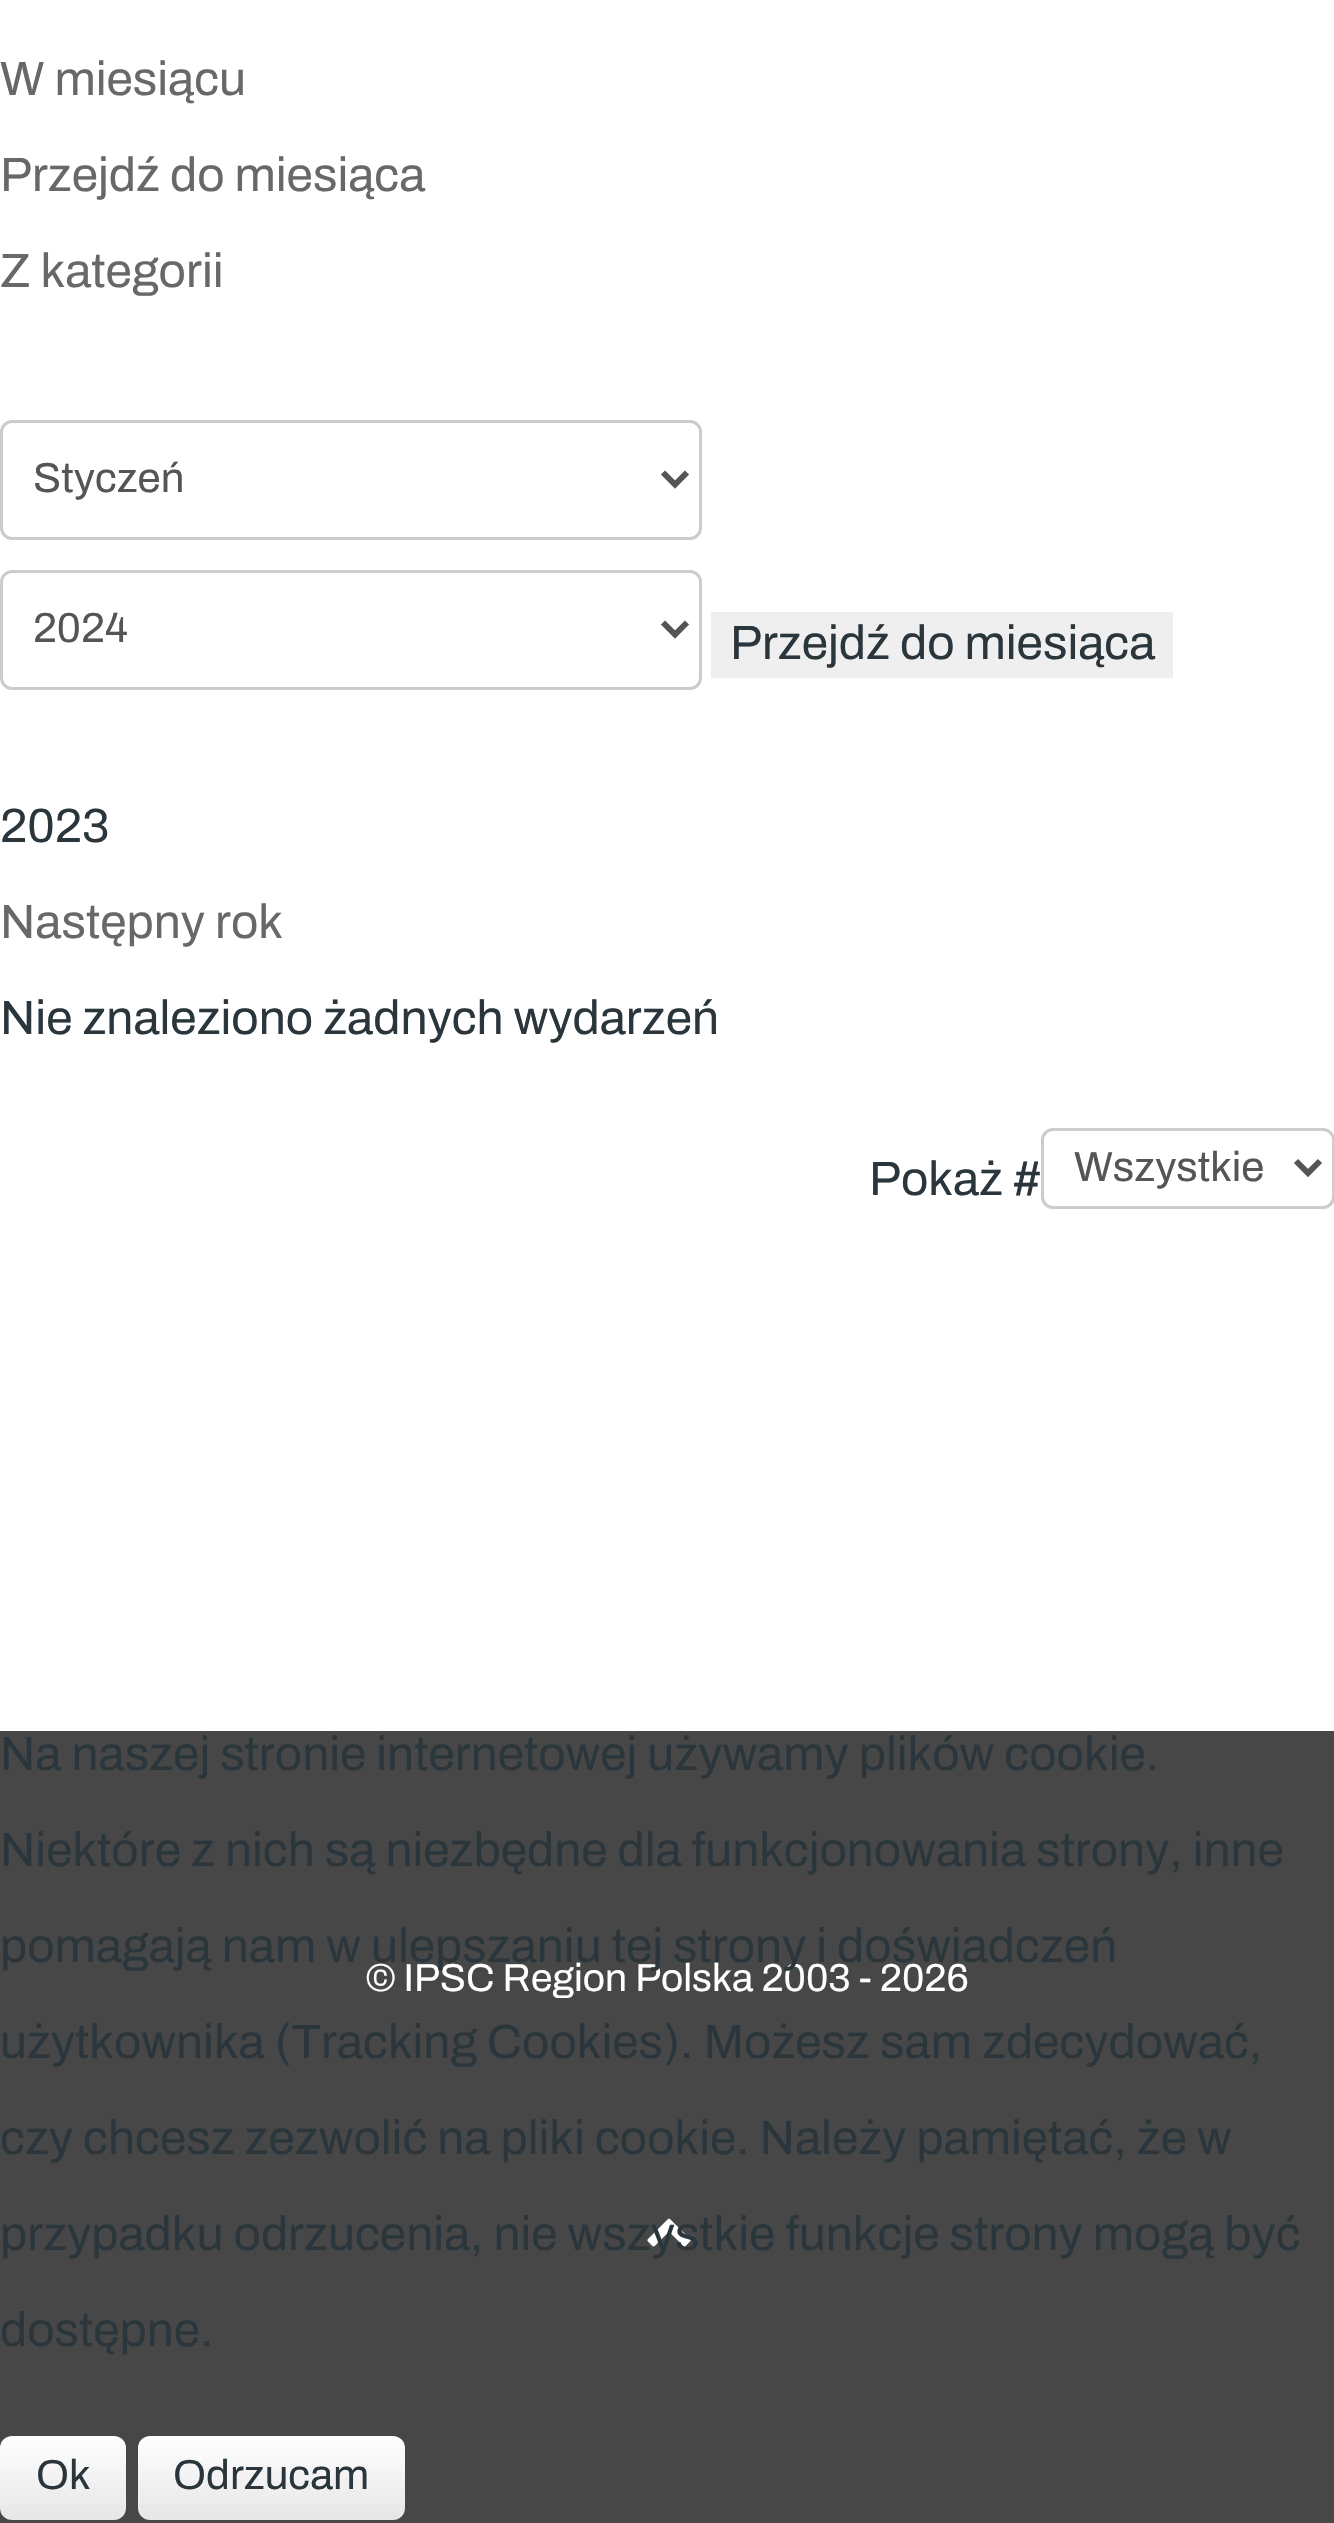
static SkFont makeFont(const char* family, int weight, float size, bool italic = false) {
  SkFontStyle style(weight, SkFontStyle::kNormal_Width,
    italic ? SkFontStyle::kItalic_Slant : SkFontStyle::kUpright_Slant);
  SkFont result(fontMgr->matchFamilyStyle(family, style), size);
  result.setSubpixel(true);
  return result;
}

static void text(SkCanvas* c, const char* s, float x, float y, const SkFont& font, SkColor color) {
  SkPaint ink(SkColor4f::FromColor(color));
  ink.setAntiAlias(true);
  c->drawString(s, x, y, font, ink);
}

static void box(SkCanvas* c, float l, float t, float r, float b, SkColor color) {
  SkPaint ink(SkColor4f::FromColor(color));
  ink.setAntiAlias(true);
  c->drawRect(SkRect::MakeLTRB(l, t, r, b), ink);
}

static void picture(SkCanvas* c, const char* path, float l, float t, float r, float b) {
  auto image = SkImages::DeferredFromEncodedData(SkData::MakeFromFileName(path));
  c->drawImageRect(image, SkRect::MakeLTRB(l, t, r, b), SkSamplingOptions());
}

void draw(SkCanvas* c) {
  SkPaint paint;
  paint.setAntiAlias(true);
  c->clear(0xffffffff);
  SkFont face1 = makeFont("Archivo", 400, 48);
  text(c, "W miesiącu", 0, 95, face1, 0xff696767);
  text(c, "Przejdź do miesiąca", 0, 191, face1, 0xff696767);
  text(c, "Z kategorii", 0, 287, face1, 0xff696767);
  paint.setStyle(SkPaint::kStroke_Style);
  paint.setStrokeWidth(3);
  paint.setColor(0xffcccccc);
  c->drawRoundRect(SkRect::MakeLTRB(1.5f, 421.5f, 700.5f, 538.5f), 10.5f, 10.5f, paint);
  paint.setStrokeWidth(6);
  paint.setColor(0xff555555);
  c->drawPath(SkPathBuilder().moveTo(663, 472.5f).lineTo(675, 484.5f).lineTo(687, 472.5f).detach(), paint);
  SkFont face2 = makeFont("Archivo", 400, 42);
  text(c, "Styczeń", 33, 492, face2, 0xff555555);
  paint.setStrokeWidth(3);
  paint.setColor(0xffcccccc);
  c->drawRoundRect(SkRect::MakeLTRB(1.5f, 571.5f, 700.5f, 688.5f), 10.5f, 10.5f, paint);
  paint.setStrokeWidth(6);
  paint.setColor(0xff555555);
  c->drawPath(SkPathBuilder().moveTo(663, 622.5f).lineTo(675, 634.5f).lineTo(687, 622.5f).detach(), paint);
  text(c, "2024", 33, 642, face2, 0xff555555);
  box(c, 711, 612, 1173, 678, 0xffefefef);
  text(c, "Przejdź do miesiąca", 730, 659, face1, 0xff2a363b);
  text(c, "2023", 0, 842, face1, 0xff2a363b);
  text(c, "Następny rok", 0, 938, face1, 0xff696767);
  text(c, "Nie znaleziono żadnych wydarzeń", 0, 1034, face1, 0xff2a363b);
  text(c, "Pokaż #", 869, 1195, face1, 0xff2a363b);
  paint.setStrokeWidth(3);
  paint.setColor(0xffcccccc);
  c->drawRoundRect(SkRect::MakeLTRB(1042.5f, 1129.5f, 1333.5f, 1207.5f), 10.5f, 10.5f, paint);
  paint.setStrokeWidth(6);
  paint.setColor(0xff555555);
  c->drawPath(SkPathBuilder().moveTo(1296, 1161).lineTo(1308, 1173).lineTo(1320, 1161).detach(), paint);
  text(c, "Wszystkie", 1074, 1181, face2, 0xff555555);
  box(c, 0, 1731, 1334, 2523, 0xff474747);
  SkFont face3 = makeFont("Archivo", 400, 39);
  text(c, "© IPSC Region Polska 2003 - 2026", 366, 1991, face3, 0xffffffff);
  picture(c, "img_01.png", 647, 2218, 691, 2247);
  text(c, "Na naszej stronie internetowej używamy plików cookie.", 0, 1770, face1, 0xff2a363b);
  text(c, "Niektóre z nich są niezbędne dla funkcjonowania strony, inne", 0, 1866, face1, 0xff2a363b);
  text(c, "pomagają nam w ulepszaniu tej strony i doświadczeń", 0, 1962, face1, 0xff2a363b);
  text(c, "użytkownika (Tracking Cookies). Możesz sam zdecydować,", 0, 2058, face1, 0xff2a363b);
  text(c, "czy chcesz zezwolić na pliki cookie. Należy pamiętać, że w", 0, 2154, face1, 0xff2a363b);
  text(c, "przypadku odrzucenia, nie wszystkie funkcje strony mogą być", 0, 2250, face1, 0xff2a363b);
  text(c, "dostępne.", 0, 2346, face1, 0xff2a363b);
  paint.setStyle(SkPaint::kFill_Style);
  {
    const SkColor colors[] = {0xffffffff, 0xffe6e6e6};
    const float stops[] = {0, 1};
    const SkPoint ends[] = {{63, 2436}, {63, 2520}};
    paint.setShader(SkGradientShader::MakeLinear(ends, colors, stops, 2, SkTileMode::kClamp));
    paint.setAlpha(255);
  }
  c->drawRoundRect(SkRect::MakeLTRB(0, 2436, 126, 2520), 12, 12, paint);
  text(c, "Ok", 36, 2489, face2, 0xff2a363b);
  {
    const SkColor colors[] = {0xffffffff, 0xffe6e6e6};
    const float stops[] = {0, 1};
    const SkPoint ends[] = {{272, 2436}, {272, 2520}};
    paint.setShader(SkGradientShader::MakeLinear(ends, colors, stops, 2, SkTileMode::kClamp));
    paint.setAlpha(255);
  }
  c->drawRoundRect(SkRect::MakeLTRB(138, 2436, 405, 2520), 12, 12, paint);
  text(c, "Odrzucam", 173, 2489, face2, 0xff2a363b);
}
